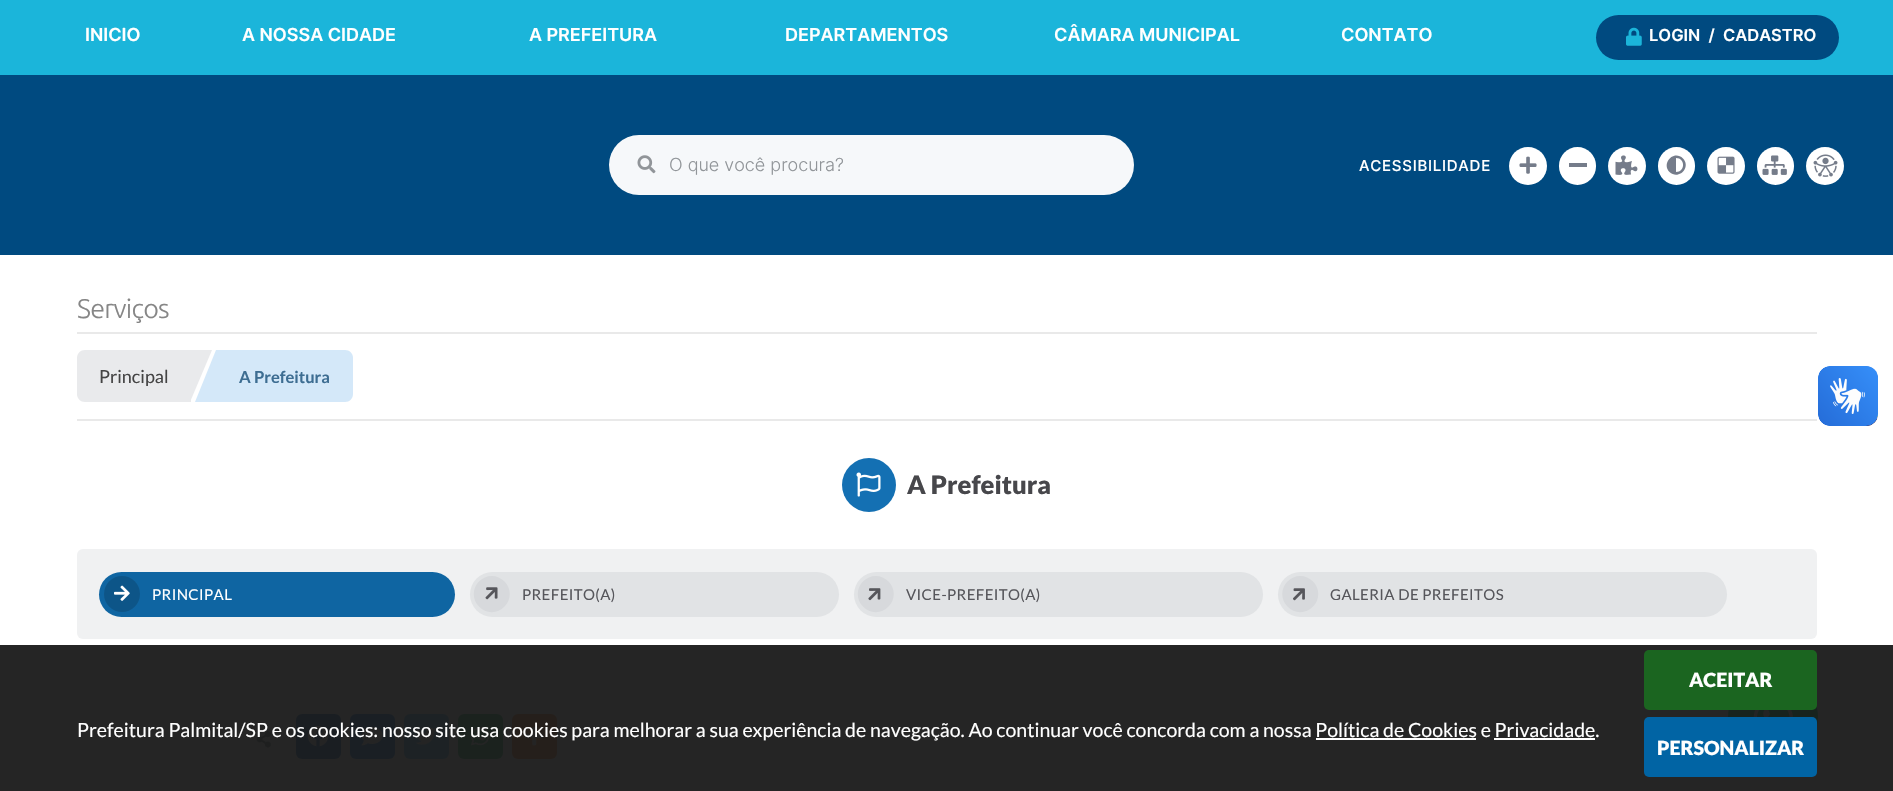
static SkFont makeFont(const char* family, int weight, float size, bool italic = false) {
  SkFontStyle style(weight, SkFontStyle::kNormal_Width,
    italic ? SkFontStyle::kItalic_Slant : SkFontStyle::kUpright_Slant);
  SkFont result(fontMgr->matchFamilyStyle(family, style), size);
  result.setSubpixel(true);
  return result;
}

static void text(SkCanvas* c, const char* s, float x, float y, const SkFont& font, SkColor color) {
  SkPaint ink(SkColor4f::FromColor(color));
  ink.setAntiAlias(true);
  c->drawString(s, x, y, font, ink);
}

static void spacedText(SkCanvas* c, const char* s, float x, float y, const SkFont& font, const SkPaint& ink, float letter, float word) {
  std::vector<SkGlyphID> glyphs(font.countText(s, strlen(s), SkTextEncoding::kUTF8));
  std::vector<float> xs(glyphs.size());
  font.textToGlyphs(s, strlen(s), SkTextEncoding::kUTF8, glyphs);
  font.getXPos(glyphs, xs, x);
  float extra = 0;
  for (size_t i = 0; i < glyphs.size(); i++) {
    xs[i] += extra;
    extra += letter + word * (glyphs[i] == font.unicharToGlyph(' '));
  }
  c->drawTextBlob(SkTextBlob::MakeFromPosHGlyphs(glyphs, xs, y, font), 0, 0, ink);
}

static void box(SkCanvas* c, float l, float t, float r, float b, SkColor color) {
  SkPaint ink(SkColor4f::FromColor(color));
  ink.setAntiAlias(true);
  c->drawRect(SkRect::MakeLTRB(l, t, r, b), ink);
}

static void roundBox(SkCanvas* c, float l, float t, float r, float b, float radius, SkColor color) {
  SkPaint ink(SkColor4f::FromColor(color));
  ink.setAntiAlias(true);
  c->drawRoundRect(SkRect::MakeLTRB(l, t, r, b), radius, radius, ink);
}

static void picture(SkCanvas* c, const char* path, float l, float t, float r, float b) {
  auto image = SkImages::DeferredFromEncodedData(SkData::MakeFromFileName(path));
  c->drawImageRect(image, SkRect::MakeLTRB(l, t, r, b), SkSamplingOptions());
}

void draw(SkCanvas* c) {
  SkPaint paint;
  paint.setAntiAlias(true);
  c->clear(0xffffffff);
  box(c, 0, 645, 1893, 791, 0xff252525);
  box(c, 0, 75, 1893, 255, 0xff004a80);
  box(c, 0, 0, 1893, 75, 0xff1bb5da);
  SkFont face1 = makeFont("Inter", 600, 18);
  text(c, "INICIO", 85, 41, face1, 0xffffffff);
  text(c, "A NOSSA CIDADE", 242, 41, face1, 0xffffffff);
  text(c, "A PREFEITURA", 529, 41, face1, 0xffffffff);
  text(c, "DEPARTAMENTOS", 785, 41, face1, 0xffffffff);
  text(c, "CÂMARA MUNICIPAL", 1054, 41, face1, 0xffffffff);
  text(c, "CONTATO", 1341, 41, face1, 0xffffffff);
  roundBox(c, 609, 135, 1134, 195, 30, 0xfff6f8fa);
  picture(c, "img_01.png", 637, 155, 656, 174);
  SkFont face2 = makeFont("Inter", 300, 18);
  text(c, "O que você procura?", 669, 171, face2, 0xff919599);
  SkFont face3 = makeFont("Inter", 500, 15);
  paint.setColor(0xffffffff);
  spacedText(c, "ACESSIBILIDADE", 1359, 171, face3, paint, 0.75f, 0);
  c->drawCircle(1528, 166, 19, paint);
  picture(c, "img_02.png", 1519, 156, 1537, 174);
  roundBox(c, 1559, 147, 1596, 185, 18.5f, 0xffffffff);
  box(c, 1569, 163, 1587, 167, 0xff757c8a);
  c->drawCircle(1627, 166, 19, paint);
  picture(c, "img_03.png", 1615, 155, 1638, 175);
  roundBox(c, 1658, 147, 1695, 185, 18.5f, 0xffffffff);
  paint.setColor(0xff757c8a);
  c->drawPath(SkPathBuilder().moveTo(1669.5f, 172).cubicTo(1661, 163, 1674, 149.5f, 1683, 158.5f).cubicTo(1691.5f, 167.5f, 1678.5f, 180.5f, 1669.5f, 172).close().moveTo(1676, 172).cubicTo(1685.5f, 172, 1685.5f, 158, 1676, 158).close().detach(), paint);
  paint.setColor(0xffffffff);
  c->drawCircle(1726, 166, 19, paint);
  picture(c, "img_04.png", 1717, 156, 1735, 174);
  roundBox(c, 1757, 147, 1794, 185, 18.5f, 0xffffffff);
  picture(c, "img_05.png", 1762, 155, 1787, 175);
  c->drawCircle(1825, 166, 19, paint);
  picture(c, "img_06.png", 1813, 154, 1838, 177);
  roundBox(c, 1596, 15, 1839, 60, 22.5f, 0xff004a80);
  picture(c, "img_07.png", 1626, 27, 1642, 46);
  SkFont face4 = makeFont("Inter", 600, 16.5f);
  text(c, "LOGIN  /  CADASTRO", 1649, 41, face4, 0xffffffff);
  picture(c, "img_08.png", 1818, 366, 1878, 426);
  picture(c, "img_09.png", 1818, 366, 1878, 426);
  picture(c, "img_15.png", 256, 731, 271, 748);
  roundBox(c, 296, 714, 341, 759, 6, 0xff1a1e22);
  picture(c, "img_16.png", 307, 726, 329, 747);
  roundBox(c, 350, 714, 395, 759, 6, 0xff1a1f24);
  picture(c, "img_17.png", 361, 726, 383, 746);
  roundBox(c, 404, 714, 449, 759, 6, 0xff1d2225);
  picture(c, "img_18.png", 415, 727, 437, 745);
  roundBox(c, 458, 714, 503, 759, 6, 0xff1b221e);
  picture(c, "img_19.png", 471, 726, 490, 746);
  roundBox(c, 512, 714, 557, 759, 6, 0xff251f1b);
  picture(c, "img_20.png", 525, 726, 544, 746);
  SkFont face5 = makeFont("Lato", 400, 19.5f);
  text(c, "Prefeitura Palmital/SP e os cookies: nosso site usa cookies para melhorar a sua experiência de navegação. Ao continuar você concorda com a nossa Política de Cookies e Privacidade.", 77, 737, face5, 0xffffffff);
  box(c, 1316, 738, 1476, 740, 0xffffffff);
  box(c, 1494, 738, 1595, 740, 0xffffffff);
  paint.setColor(0xff18231e);
  c->drawCircle(1773, 717, 45, paint);
  roundBox(c, 1644, 650, 1817, 710, 5, 0xff1b6520);
  SkFont face6 = makeFont("Lato", 900, 19.5f);
  text(c, "ACEITAR", 1689, 687, face6, 0xffffffff);
  roundBox(c, 1644, 717, 1817, 777, 5, 0xff0164a4);
  text(c, "PERSONALIZAR", 1657, 755, face6, 0xffffffff);
  SkFont face7 = makeFont("Ubuntu", 300, 27);
  paint.setColor(0xff868686);
  spacedText(c, "Serviços", 77, 318, face7, paint, -0.75f, 0);
  box(c, 77, 332, 1817, 334, 0xffe9e9e9);
  box(c, 77, 419, 1817, 421, 0xffe9e9e9);
  paint.setColor(0xffe9eaec);
  c->drawPath(SkPathBuilder().moveTo(85, 350).lineTo(191, 350).lineTo(191, 402).lineTo(85, 402).cubicTo(80.5f, 402, 77, 398.5f, 77, 394).lineTo(77, 358).cubicTo(77, 353.5f, 80.5f, 350, 85, 350).close().detach(), paint);
  SkFont face8 = makeFont("Lato", 400, 18);
  text(c, "Principal", 99, 383, face8, 0xff444444);
  c->drawPath(SkPathBuilder().moveTo(190, 350).lineTo(212, 350).lineTo(190, 402).close().detach(), paint);
  paint.setColor(0xffd4e8f9);
  c->drawPath(SkPathBuilder().moveTo(216, 350).lineTo(345, 350).cubicTo(349.5f, 350, 353, 353.5f, 353, 358).lineTo(353, 394).cubicTo(353, 398.5f, 349.5f, 402, 345, 402).lineTo(216, 402).close().detach(), paint);
  c->drawPath(SkPathBuilder().moveTo(216, 402).lineTo(195, 402).lineTo(216, 350).close().detach(), paint);
  SkFont face9 = makeFont("Lato", 700, 16.5f);
  text(c, "A Prefeitura", 239, 383, face9, 0xff3d6d92);
  paint.setColor(0xff1470b3);
  c->drawCircle(869, 485, 27, paint);
  picture(c, "img_10.png", 856, 472, 881, 497);
  SkFont face10 = makeFont("Lato", 900, 25.5f);
  text(c, "A Prefeitura", 907, 494, face10, 0xff47474b);
  roundBox(c, 77, 549, 1817, 639, 6, 0xfff0f1f2);
  roundBox(c, 99, 572, 455, 617, 22.5f, 0xff0f65a2);
  paint.setColor(0xff0d5588);
  c->drawCircle(122, 594, 18, paint);
  picture(c, "img_11.png", 114, 585, 130, 601);
  SkFont face11 = makeFont("Lato", 400, 15);
  paint.setColor(0xffffffff);
  spacedText(c, "PRINCIPAL", 152, 600, face11, paint, 0.4f, 0);
  roundBox(c, 470, 572, 839, 617, 22.5f, 0xffe1e3e5);
  paint.setColor(0xffd7d9dc);
  c->drawPath(SkPathBuilder().moveTo(479, 581.5f).cubicTo(486, 574, 497.5f, 574, 504.5f, 581.5f).cubicTo(511.5f, 588.5f, 511.5f, 599.5f, 504.5f, 606.5f).cubicTo(497.5f, 614, 486, 614, 479, 606.5f).cubicTo(472, 599.5f, 472, 588.5f, 479, 581.5f).close().detach(), paint);
  picture(c, "img_12.png", 485, 587, 498, 600);
  paint.setColor(0xff56565b);
  spacedText(c, "PREFEITO(A)", 522, 600, face11, paint, 0.4f, 0);
  roundBox(c, 854, 572, 1263, 617, 22.5f, 0xffe1e3e5);
  paint.setColor(0xffd7d9dc);
  c->drawPath(SkPathBuilder().moveTo(863, 581.5f).cubicTo(870, 574, 881.5f, 574, 888.5f, 581.5f).cubicTo(895.5f, 588.5f, 895.5f, 599.5f, 888.5f, 606.5f).cubicTo(881.5f, 614, 870, 614, 863, 606.5f).cubicTo(856, 599.5f, 856, 588.5f, 863, 581.5f).close().detach(), paint);
  picture(c, "img_13.png", 868, 588, 881, 601);
  paint.setColor(0xff56565b);
  spacedText(c, "VICE-PREFEITO(A)", 906, 600, face11, paint, 0.4f, 0);
  roundBox(c, 1278, 572, 1727, 617, 22.5f, 0xffe1e3e5);
  paint.setColor(0xffd7d9dc);
  c->drawPath(SkPathBuilder().moveTo(1287.5f, 581.5f).cubicTo(1294.5f, 574, 1306, 574, 1313, 581.5f).cubicTo(1320, 588.5f, 1320, 599.5f, 1313, 606.5f).cubicTo(1306, 614, 1294.5f, 614, 1287.5f, 606.5f).cubicTo(1280.5f, 599.5f, 1280.5f, 588.5f, 1287.5f, 581.5f).close().detach(), paint);
  picture(c, "img_14.png", 1293, 588, 1305, 601);
  paint.setColor(0xff56565b);
  spacedText(c, "GALERIA DE PREFEITOS", 1330, 600, face11, paint, 0.4f, 0);
  picture(c, "img_21.png", 1753, 710, 1793, 717);
}
